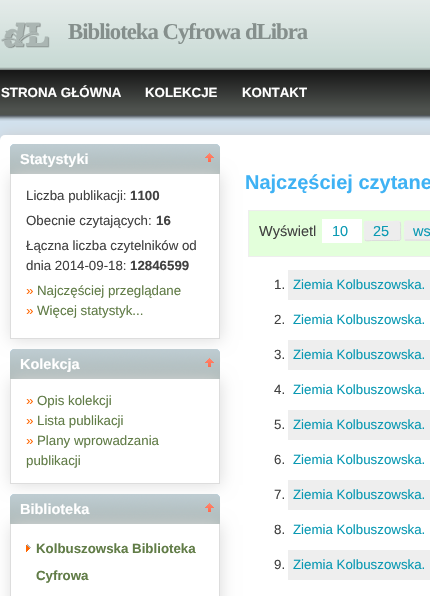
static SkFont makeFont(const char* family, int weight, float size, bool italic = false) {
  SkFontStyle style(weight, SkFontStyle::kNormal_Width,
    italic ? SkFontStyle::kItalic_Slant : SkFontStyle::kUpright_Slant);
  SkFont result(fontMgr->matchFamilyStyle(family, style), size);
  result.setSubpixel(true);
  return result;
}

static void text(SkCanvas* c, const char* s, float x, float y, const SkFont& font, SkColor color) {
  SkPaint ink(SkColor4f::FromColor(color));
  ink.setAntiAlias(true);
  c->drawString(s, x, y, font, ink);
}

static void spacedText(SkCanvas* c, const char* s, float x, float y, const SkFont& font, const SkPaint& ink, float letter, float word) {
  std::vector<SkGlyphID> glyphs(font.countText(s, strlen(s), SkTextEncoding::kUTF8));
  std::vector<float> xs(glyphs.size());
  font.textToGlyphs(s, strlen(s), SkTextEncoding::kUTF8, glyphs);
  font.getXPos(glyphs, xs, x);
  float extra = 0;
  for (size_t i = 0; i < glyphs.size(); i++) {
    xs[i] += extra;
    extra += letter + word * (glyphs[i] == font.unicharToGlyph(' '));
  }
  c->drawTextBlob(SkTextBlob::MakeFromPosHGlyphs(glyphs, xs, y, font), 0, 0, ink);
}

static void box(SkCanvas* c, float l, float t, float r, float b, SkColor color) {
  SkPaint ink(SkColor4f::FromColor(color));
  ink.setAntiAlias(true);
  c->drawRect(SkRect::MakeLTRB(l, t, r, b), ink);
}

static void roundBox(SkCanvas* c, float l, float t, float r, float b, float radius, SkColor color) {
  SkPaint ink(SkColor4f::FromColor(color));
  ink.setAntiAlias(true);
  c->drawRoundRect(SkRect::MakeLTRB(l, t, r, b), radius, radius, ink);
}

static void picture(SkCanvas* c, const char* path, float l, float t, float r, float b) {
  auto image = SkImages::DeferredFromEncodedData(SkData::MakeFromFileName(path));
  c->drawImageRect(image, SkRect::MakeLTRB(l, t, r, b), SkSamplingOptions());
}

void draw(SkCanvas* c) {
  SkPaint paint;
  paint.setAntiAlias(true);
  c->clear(0xffd2e2ef);
  picture(c, "img_01.png", 0, 0, 430, 70);
  picture(c, "img_02.png", 1, 22, 50, 49);
  SkFont face1 = makeFont("Liberation Serif", 700, 22.75f);
  paint.setColor(0xff858f8c);
  spacedText(c, "Biblioteka Cyfrowa dLibra", 68, 39, face1, paint, -1, 0);
  paint.setColor(0xffcccccc);
  paint.setMaskFilter(SkMaskFilter::MakeBlur(kNormal_SkBlurStyle, 7.5f));
  c->drawRoundRect(SkRect::MakeLTRB(0, 135, 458, 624), 5, 5, paint);
  paint.setMaskFilter(nullptr);
  picture(c, "img_03.png", 0, 70, 430, 121);
  SkFont face2 = makeFont("Liberation Sans", 700, 13.3f);
  text(c, "STRONA GŁÓWNA", 1, 97, face2, 0xffffffff);
  text(c, "KOLEKCJE", 145, 97, face2, 0xffffffff);
  text(c, "KONTAKT", 242, 97, face2, 0xffffffff);
  roundBox(c, 0, 135, 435, 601, 5, 0xffffffff);
  picture(c, "img_04.png", 10, 144, 220, 174);
  c->save();
  c->clipPath(SkPathBuilder(SkPathFillType::kEvenOdd).moveTo(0, 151).lineTo(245, 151).lineTo(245, 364).lineTo(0, 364).close().moveTo(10, 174).lineTo(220, 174).lineTo(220, 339).lineTo(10, 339).close().detach(), true);
  paint.setColor(0xffdddddd);
  paint.setMaskFilter(SkMaskFilter::MakeBlur(kNormal_SkBlurStyle, 7.5f));
  c->drawRect(SkRect::MakeLTRB(11, 175, 221, 340), paint);
  paint.setMaskFilter(nullptr);
  c->restore();
  SkFont face3 = makeFont("Liberation Sans", 700, 14.5f);
  text(c, "Statystyki", 20, 164, face3, 0xffffffff);
  picture(c, "img_05.png", 205, 153, 214, 162);
  box(c, 219, 174, 220, 339, 0xffdddddd);
  box(c, 10, 338, 220, 339, 0xffdddddd);
  box(c, 10, 174, 11, 339, 0xffdddddd);
  SkFont face4 = makeFont("Liberation Sans", 400, 13.3f);
  text(c, "Liczba publikacji:", 26, 200, face4, 0xff414141);
  text(c, "1100", 130, 200, face2, 0xff414141);
  text(c, "Obecnie czytających:", 26, 225, face4, 0xff414141);
  text(c, "16", 156, 225, face2, 0xff414141);
  text(c, "Łączna liczba czytelników od", 26, 250, face4, 0xff414141);
  text(c, "dnia 2014-09-18:", 26, 270, face4, 0xff414141);
  text(c, "12846599", 130, 270, face2, 0xff414141);
  text(c, "»", 26, 295, face4, 0xffff6600);
  text(c, "Najczęściej przeglądane", 37, 295, face4, 0xff617c47);
  text(c, "»", 26, 315, face4, 0xffff6600);
  text(c, "Więcej statystyk...", 37, 315, face4, 0xff617c47);
  picture(c, "img_06.png", 10, 349, 220, 379);
  c->save();
  c->clipPath(SkPathBuilder(SkPathFillType::kEvenOdd).moveTo(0, 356).lineTo(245, 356).lineTo(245, 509).lineTo(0, 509).close().moveTo(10, 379).lineTo(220, 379).lineTo(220, 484).lineTo(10, 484).close().detach(), true);
  paint.setMaskFilter(SkMaskFilter::MakeBlur(kNormal_SkBlurStyle, 7.5f));
  c->drawRect(SkRect::MakeLTRB(11, 380, 221, 485), paint);
  paint.setMaskFilter(nullptr);
  c->restore();
  text(c, "Kolekcja", 20, 369, face3, 0xffffffff);
  picture(c, "img_05.png", 205, 358, 214, 367);
  box(c, 219, 379, 220, 484, 0xffdddddd);
  box(c, 10, 483, 220, 484, 0xffdddddd);
  box(c, 10, 379, 11, 484, 0xffdddddd);
  text(c, "»", 26, 405, face4, 0xffff6600);
  text(c, "Opis kolekcji", 37, 405, face4, 0xff617c47);
  text(c, "»", 26, 425, face4, 0xffff6600);
  text(c, "Lista publikacji", 37, 425, face4, 0xff617c47);
  text(c, "»", 26, 445, face4, 0xffff6600);
  text(c, "Plany wprowadzania", 37, 445, face4, 0xff617c47);
  text(c, "publikacji", 26, 465, face4, 0xff617c47);
  picture(c, "img_06.png", 10, 494, 220, 524);
  c->save();
  c->clipPath(SkPathBuilder(SkPathFillType::kEvenOdd).moveTo(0, 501).lineTo(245, 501).lineTo(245, 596).lineTo(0, 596).close().moveTo(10, 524).lineTo(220, 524).lineTo(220, 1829).lineTo(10, 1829).close().detach(), true);
  paint.setMaskFilter(SkMaskFilter::MakeBlur(kNormal_SkBlurStyle, 7.5f));
  c->drawRect(SkRect::MakeLTRB(11, 525, 221, 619), paint);
  paint.setMaskFilter(nullptr);
  c->restore();
  text(c, "Biblioteka", 20, 514, face3, 0xffffffff);
  picture(c, "img_05.png", 205, 503, 214, 512);
  box(c, 219, 524, 220, 596, 0xffdddddd);
  box(c, 10, 524, 11, 596, 0xffdddddd);
  picture(c, "img_07.png", 26, 544, 31, 552);
  text(c, "Kolbuszowska Biblioteka", 36, 553, face2, 0xff617c47);
  text(c, "Cyfrowa", 36, 580, face2, 0xff617c47);
  SkFont face5 = makeFont("Liberation Sans", 700, 20);
  text(c, "Najczęściej czytane", 245, 189, face5, 0xff3fb2f4);
  paint.setColor(0xffe3ffdb);
  c->drawRect(SkRect::MakeLTRB(248.5f, 210.5f, 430.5f, 256.5f), paint);
  paint.setStyle(SkPaint::kStroke_Style);
  paint.setStrokeWidth(1);
  paint.setColor(0xffeeeeee);
  c->drawRect(SkRect::MakeLTRB(248.5f, 210.5f, 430.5f, 256.5f), paint);
  SkFont face6 = makeFont("Liberation Sans", 400, 14.5f);
  text(c, "Wyświetl", 259, 236, face6, 0xff414141);
  box(c, 322, 219, 362, 243, 0xffffffff);
  text(c, "10", 332, 236, face6, 0xff0999b3);
  roundBox(c, 364, 221, 401, 241, 2, 0xffededed);
  paint.setColor(0xffdddddd);
  c->drawPath(SkPathBuilder().moveTo(400, 222).cubicTo(401, 223, 400.5f, 229.5f, 400.5f, 231).cubicTo(400.5f, 241, 403, 240.5f, 393.5f, 240.5f).lineTo(371.5f, 240.5f).cubicTo(369.5f, 240.5f, 366.5f, 241.5f, 365, 240).detach(), paint);
  paint.setColor(0xffeeeeee);
  c->drawPath(SkPathBuilder().moveTo(365, 240).cubicTo(364, 239, 364.5f, 232.5f, 364.5f, 231).cubicTo(364.5f, 221, 362, 221.5f, 371.5f, 221.5f).lineTo(393.5f, 221.5f).cubicTo(395.5f, 221.5f, 398.5f, 220.5f, 400, 222).detach(), paint);
  text(c, "25", 373, 236, face6, 0xff0999b3);
  roundBox(c, 404, 221, 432, 241, 2, 0xffededed);
  paint.setColor(0xffdddddd);
  c->drawPath(SkPathBuilder().moveTo(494, 222).cubicTo(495.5f, 223.5f, 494.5f, 229, 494.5f, 231).cubicTo(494.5f, 244.5f, 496, 240.5f, 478.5f, 240.5f).lineTo(405, 240).detach(), paint);
  paint.setColor(0xffeeeeee);
  c->drawPath(SkPathBuilder().moveTo(405, 240).cubicTo(403.5f, 238.5f, 404.5f, 233, 404.5f, 231).cubicTo(404.5f, 217.5f, 403, 221.5f, 420.5f, 221.5f).lineTo(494, 222).detach(), paint);
  text(c, "ws", 413, 236, face6, 0xff0999b3);
  box(c, 288, 270, 430, 300, 0xffeeeeee);
  text(c, "1.", 274, 289, face4, 0xff414141);
  text(c, "Ziemia Kolbuszowska.", 293, 289, face4, 0xff0999b3);
  text(c, "2.", 274, 324, face4, 0xff414141);
  text(c, "Ziemia Kolbuszowska.", 293, 324, face4, 0xff0999b3);
  box(c, 288, 340, 430, 370, 0xffeeeeee);
  text(c, "3.", 274, 359, face4, 0xff414141);
  text(c, "Ziemia Kolbuszowska.", 293, 359, face4, 0xff0999b3);
  text(c, "4.", 274, 394, face4, 0xff414141);
  text(c, "Ziemia Kolbuszowska.", 293, 394, face4, 0xff0999b3);
  box(c, 288, 410, 430, 440, 0xffeeeeee);
  text(c, "5.", 274, 429, face4, 0xff414141);
  text(c, "Ziemia Kolbuszowska.", 293, 429, face4, 0xff0999b3);
  text(c, "6.", 274, 464, face4, 0xff414141);
  text(c, "Ziemia Kolbuszowska.", 293, 464, face4, 0xff0999b3);
  box(c, 288, 480, 430, 510, 0xffeeeeee);
  text(c, "7.", 274, 499, face4, 0xff414141);
  text(c, "Ziemia Kolbuszowska.", 293, 499, face4, 0xff0999b3);
  text(c, "8.", 274, 534, face4, 0xff414141);
  text(c, "Ziemia Kolbuszowska.", 293, 534, face4, 0xff0999b3);
  box(c, 288, 550, 430, 580, 0xffeeeeee);
  text(c, "9.", 274, 569, face4, 0xff414141);
  text(c, "Ziemia Kolbuszowska.", 293, 569, face4, 0xff0999b3);
}
